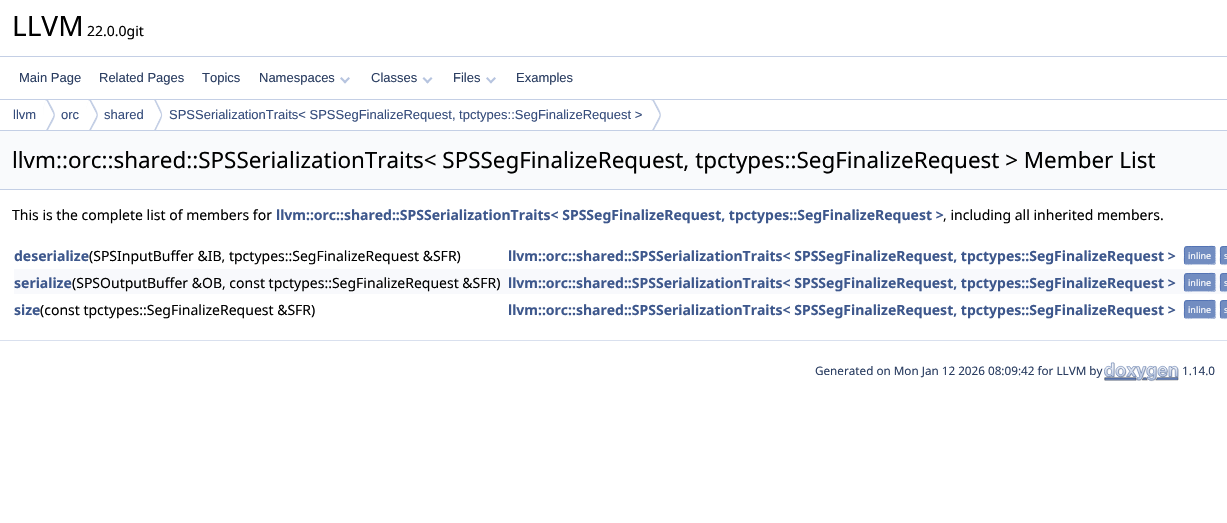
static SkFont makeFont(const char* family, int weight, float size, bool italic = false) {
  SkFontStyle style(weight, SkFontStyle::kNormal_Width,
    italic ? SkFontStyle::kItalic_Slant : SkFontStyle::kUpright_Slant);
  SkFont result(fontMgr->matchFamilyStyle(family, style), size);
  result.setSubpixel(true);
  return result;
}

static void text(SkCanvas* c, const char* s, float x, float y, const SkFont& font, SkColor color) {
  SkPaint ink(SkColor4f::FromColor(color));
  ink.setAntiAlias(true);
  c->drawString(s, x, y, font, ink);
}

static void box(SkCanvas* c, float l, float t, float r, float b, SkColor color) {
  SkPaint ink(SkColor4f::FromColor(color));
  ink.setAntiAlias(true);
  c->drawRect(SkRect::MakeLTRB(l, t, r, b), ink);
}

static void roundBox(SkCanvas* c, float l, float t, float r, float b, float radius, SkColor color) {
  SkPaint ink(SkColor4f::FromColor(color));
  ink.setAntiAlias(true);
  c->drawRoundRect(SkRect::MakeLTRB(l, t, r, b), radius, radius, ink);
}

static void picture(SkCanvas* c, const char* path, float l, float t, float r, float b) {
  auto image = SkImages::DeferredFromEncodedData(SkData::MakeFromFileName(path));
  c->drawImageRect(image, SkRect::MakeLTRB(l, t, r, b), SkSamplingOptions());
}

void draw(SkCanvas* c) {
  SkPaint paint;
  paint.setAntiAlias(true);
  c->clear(0xffffffff);
  box(c, 0, 56, 1227, 57, 0xffc4cfe5);
  SkFont face1 = makeFont("Noto Sans", 400, 28);
  text(c, "LLVM", 12, 36, face1, 0xff000000);
  SkFont face2 = makeFont("Noto Sans", 400, 14);
  text(c, "22.0.0git", 87, 36, face2, 0xff000000);
  box(c, 0, 99, 1227, 100, 0xffc4cfe5);
  SkFont face3 = makeFont("Liberation Sans", 400, 13);
  text(c, "Main Page", 19, 82, face3, 0xff2a3d61);
  text(c, "Related Pages", 99, 82, face3, 0xff2a3d61);
  text(c, "Topics", 202, 82, face3, 0xff2a3d61);
  text(c, "Namespaces", 259, 82, face3, 0xff2a3d61);
  paint.setColor(0xffb6c4df);
  c->drawPath(SkPathBuilder().moveTo(348.5f, 77).lineTo(350, 78.5f).lineTo(345, 83.5f).lineTo(343.5f, 82).close().detach(), paint);
  c->drawPath(SkPathBuilder().moveTo(341.5f, 77).lineTo(346.5f, 82).lineTo(345, 83.5f).lineTo(340, 78.5f).close().detach(), paint);
  text(c, "Classes", 371, 82, face3, 0xff2a3d61);
  c->drawPath(SkPathBuilder().moveTo(431, 77).lineTo(432.5f, 78.5f).lineTo(427.5f, 83.5f).lineTo(426, 82).close().detach(), paint);
  c->drawPath(SkPathBuilder().moveTo(424, 77).lineTo(429, 82).lineTo(427.5f, 83.5f).lineTo(422.5f, 78.5f).close().detach(), paint);
  text(c, "Files", 453, 82, face3, 0xff2a3d61);
  c->drawPath(SkPathBuilder().moveTo(494.5f, 77).lineTo(496, 78.5f).lineTo(491, 83.5f).lineTo(489.5f, 82).close().detach(), paint);
  c->drawPath(SkPathBuilder().moveTo(487.5f, 77).lineTo(492, 82).lineTo(491, 83.5f).lineTo(486, 78.5f).close().detach(), paint);
  text(c, "Examples", 516, 82, face3, 0xff2a3d61);
  box(c, 0, 130, 1227, 131, 0xffc4cfe5);
  text(c, "llvm", 13, 119, face3, 0xff354c7b);
  c->save();
  c->clipRect(SkRect::MakeLTRB(0, 100, 1227, 130));
  paint.setColor(0xffc4cfe5);
  c->drawPath(SkPathBuilder().moveTo(47, 98).cubicTo(44, 103.5f, 43, 109.5f, 43, 116).cubicTo(43, 110.5f, 44, 104.5f, 46, 100).lineTo(53, 113.5f).cubicTo(53.5f, 114.5f, 53.5f, 115.5f, 53, 116.5f).lineTo(46, 130).lineTo(46, 129.5f).lineTo(47, 132).cubicTo(57.5f, 112, 57.5f, 118, 47, 98).close().detach(), paint);
  c->restore();
  paint.setColor(0xffffffff);
  c->drawPath(SkPathBuilder().moveTo(46, 100).lineTo(53, 113.5f).cubicTo(53.5f, 114.5f, 53.5f, 115.5f, 53, 116.5f).lineTo(46, 130).cubicTo(42, 121.5f, 42, 108.5f, 46, 100).close().detach(), paint);
  text(c, "orc", 61, 119, face3, 0xff354c7b);
  c->save();
  c->clipRect(SkRect::MakeLTRB(0, 100, 1227, 130));
  paint.setColor(0xffc4cfe5);
  c->drawPath(SkPathBuilder().moveTo(90, 98).cubicTo(88.5f, 101.5f, 87, 105, 86.5f, 108.5f).cubicTo(87, 105.5f, 88, 102.5f, 89, 100).lineTo(96, 113.5f).cubicTo(96.5f, 114.5f, 96.5f, 115.5f, 96, 116.5f).lineTo(89, 130).lineTo(90, 132).cubicTo(100.5f, 112, 100.5f, 118, 90, 98).close().detach(), paint);
  c->restore();
  paint.setColor(0xffffffff);
  c->drawPath(SkPathBuilder().moveTo(89, 100).lineTo(96, 113.5f).cubicTo(96.5f, 114.5f, 96.5f, 115.5f, 96, 116.5f).lineTo(89, 130).cubicTo(85, 121.5f, 85, 108.5f, 89, 100).close().detach(), paint);
  text(c, "shared", 104, 119, face3, 0xff354c7b);
  c->save();
  c->clipRect(SkRect::MakeLTRB(0, 100, 1227, 130));
  paint.setColor(0xffc4cfe5);
  c->drawPath(SkPathBuilder().moveTo(155, 98).lineTo(154, 100).lineTo(160.5f, 113.5f).cubicTo(161, 114.5f, 161, 115.5f, 160.5f, 116.5f).lineTo(154, 130).lineTo(155, 132).cubicTo(164.5f, 112, 164.5f, 118, 155, 98).close().detach(), paint);
  c->restore();
  paint.setColor(0xffffffff);
  c->drawPath(SkPathBuilder().moveTo(154, 100).lineTo(160.5f, 113.5f).cubicTo(161, 114.5f, 161, 115.5f, 160.5f, 116.5f).lineTo(154, 130).cubicTo(150, 121.5f, 150, 108.5f, 154, 100).close().detach(), paint);
  text(c, "SPSSerializationTraits< SPSSegFinalizeRequest, tpctypes::SegFinalizeRequest >", 169, 119, face3, 0xff354c7b);
  c->save();
  c->clipRect(SkRect::MakeLTRB(0, 100, 1227, 130));
  paint.setColor(0xffc4cfe5);
  c->drawPath(SkPathBuilder().moveTo(653, 98).lineTo(651, 102.5f).lineTo(652, 100).lineTo(659, 113.5f).cubicTo(659.5f, 114.5f, 659.5f, 115.5f, 659, 116.5f).lineTo(652, 130).lineTo(652, 129.5f).lineTo(653, 132).cubicTo(663.5f, 112, 663.5f, 118, 653, 98).close().detach(), paint);
  c->restore();
  paint.setColor(0xffffffff);
  c->drawPath(SkPathBuilder().moveTo(652, 100).lineTo(659, 113.5f).cubicTo(659.5f, 114.5f, 659.5f, 115.5f, 659, 116.5f).lineTo(652, 130).cubicTo(648, 121.5f, 648, 108.5f, 652, 100).close().detach(), paint);
  box(c, 0, 131, 1227, 189, 0xfff9fafc);
  box(c, 0, 189, 1227, 190, 0xffc4cfe5);
  SkFont face4 = makeFont("Noto Sans", 400, 22.4f);
  text(c, "llvm::orc::shared::SPSSerializationTraits< SPSSegFinalizeRequest, tpctypes::SegFinalizeRequest > Member List", 12, 168, face4, 0xff000000);
  text(c, "This is the complete list of members for", 12, 220, face2, 0xff000000);
  SkFont face5 = makeFont("Noto Sans", 700, 14);
  text(c, "llvm::orc::shared::SPSSerializationTraits< SPSSegFinalizeRequest, tpctypes::SegFinalizeRequest >", 276, 220, face5, 0xff3d578c);
  text(c, ", including all inherited members.", 943, 220, face2, 0xff000000);
  text(c, "deserialize", 14, 261, face5, 0xff3d578c);
  text(c, "(SPSInputBuffer &IB, tpctypes::SegFinalizeRequest &SFR)", 89, 261, face2, 0xff000000);
  text(c, "llvm::orc::shared::SPSSerializationTraits< SPSSegFinalizeRequest, tpctypes::SegFinalizeRequest >", 508, 261, face5, 0xff3d578c);
  roundBox(c, 1184, 246, 1216, 265, 3, 0xff728dc1);
  paint.setStyle(SkPaint::kStroke_Style);
  paint.setStrokeWidth(1);
  paint.setColor(0xffc4cfe5);
  c->drawPath(SkPathBuilder().moveTo(1215, 247).cubicTo(1216, 248.5f, 1215.5f, 253.5f, 1215.5f, 255.5f).cubicTo(1215.5f, 264, 1217, 264.5f, 1208.5f, 264.5f).lineTo(1191.5f, 264.5f).cubicTo(1190, 264.5f, 1186.5f, 265, 1185, 264).detach(), paint);
  paint.setColor(0xff5373b4);
  c->drawPath(SkPathBuilder().moveTo(1185, 264).cubicTo(1184, 262.5f, 1184.5f, 257.5f, 1184.5f, 255.5f).cubicTo(1184.5f, 247, 1183, 246.5f, 1191.5f, 246.5f).lineTo(1208.5f, 246.5f).cubicTo(1210, 246.5f, 1213.5f, 246, 1215, 247).detach(), paint);
  SkFont face6 = makeFont("Noto Sans", 400, 9);
  text(c, "inline", 1188, 259, face6, 0xffffffff);
  roundBox(c, 1220, 246, 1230, 265, 3, 0xff728dc1);
  paint.setColor(0xffc4cfe5);
  c->drawPath(SkPathBuilder().moveTo(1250, 247).cubicTo(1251, 248.5f, 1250.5f, 253.5f, 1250.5f, 255.5f).cubicTo(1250.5f, 264, 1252, 264.5f, 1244, 264.5f).lineTo(1227, 264.5f).cubicTo(1226, 264.5f, 1222.5f, 265, 1221, 264).detach(), paint);
  paint.setColor(0xff5373b4);
  c->drawPath(SkPathBuilder().moveTo(1221, 264).cubicTo(1220, 262.5f, 1220.5f, 257.5f, 1220.5f, 255.5f).cubicTo(1220.5f, 247, 1219, 246.5f, 1227, 246.5f).lineTo(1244, 246.5f).cubicTo(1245, 246.5f, 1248.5f, 246, 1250, 247).detach(), paint);
  text(c, "s", 1224, 259, face6, 0xffffffff);
  box(c, 14, 269, 1227, 294, 0xfff8f9fc);
  text(c, "serialize", 14, 288, face5, 0xff3d578c);
  text(c, "(SPSOutputBuffer &OB, const tpctypes::SegFinalizeRequest &SFR)", 72, 288, face2, 0xff000000);
  text(c, "llvm::orc::shared::SPSSerializationTraits< SPSSegFinalizeRequest, tpctypes::SegFinalizeRequest >", 508, 288, face5, 0xff3d578c);
  roundBox(c, 1184, 273, 1216, 292, 3, 0xff728dc1);
  paint.setColor(0xffc4cfe5);
  c->drawPath(SkPathBuilder().moveTo(1215, 274).cubicTo(1216, 275.5f, 1215.5f, 280.5f, 1215.5f, 282.5f).cubicTo(1215.5f, 291, 1217, 291.5f, 1208.5f, 291.5f).lineTo(1191.5f, 291.5f).cubicTo(1190, 291.5f, 1186.5f, 292, 1185, 291).detach(), paint);
  paint.setColor(0xff5373b4);
  c->drawPath(SkPathBuilder().moveTo(1185, 291).cubicTo(1184, 289.5f, 1184.5f, 284.5f, 1184.5f, 282.5f).cubicTo(1184.5f, 274, 1183, 273.5f, 1191.5f, 273.5f).lineTo(1208.5f, 273.5f).cubicTo(1210, 273.5f, 1213.5f, 273, 1215, 274).detach(), paint);
  text(c, "inline", 1188, 286, face6, 0xffffffff);
  roundBox(c, 1220, 273, 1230, 292, 3, 0xff728dc1);
  paint.setColor(0xffc4cfe5);
  c->drawPath(SkPathBuilder().moveTo(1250, 274).cubicTo(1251, 275.5f, 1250.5f, 280.5f, 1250.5f, 282.5f).cubicTo(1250.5f, 291, 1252, 291.5f, 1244, 291.5f).lineTo(1227, 291.5f).cubicTo(1226, 291.5f, 1222.5f, 292, 1221, 291).detach(), paint);
  paint.setColor(0xff5373b4);
  c->drawPath(SkPathBuilder().moveTo(1221, 291).cubicTo(1220, 289.5f, 1220.5f, 284.5f, 1220.5f, 282.5f).cubicTo(1220.5f, 274, 1219, 273.5f, 1227, 273.5f).lineTo(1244, 273.5f).cubicTo(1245, 273.5f, 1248.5f, 273, 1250, 274).detach(), paint);
  text(c, "s", 1224, 286, face6, 0xffffffff);
  text(c, "size", 14, 315, face5, 0xff3d578c);
  text(c, "(const tpctypes::SegFinalizeRequest &SFR)", 40, 315, face2, 0xff000000);
  text(c, "llvm::orc::shared::SPSSerializationTraits< SPSSegFinalizeRequest, tpctypes::SegFinalizeRequest >", 508, 315, face5, 0xff3d578c);
  roundBox(c, 1184, 300, 1216, 319, 3, 0xff728dc1);
  paint.setColor(0xffc4cfe5);
  c->drawPath(SkPathBuilder().moveTo(1215, 301).cubicTo(1216, 302.5f, 1215.5f, 307.5f, 1215.5f, 309.5f).cubicTo(1215.5f, 318, 1217, 318.5f, 1208.5f, 318.5f).lineTo(1191.5f, 318.5f).cubicTo(1190, 318.5f, 1186.5f, 319, 1185, 318).detach(), paint);
  paint.setColor(0xff5373b4);
  c->drawPath(SkPathBuilder().moveTo(1185, 318).cubicTo(1184, 316.5f, 1184.5f, 311.5f, 1184.5f, 309.5f).cubicTo(1184.5f, 301, 1183, 300.5f, 1191.5f, 300.5f).lineTo(1208.5f, 300.5f).cubicTo(1210, 300.5f, 1213.5f, 300, 1215, 301).detach(), paint);
  text(c, "inline", 1188, 313, face6, 0xffffffff);
  roundBox(c, 1220, 300, 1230, 319, 3, 0xff728dc1);
  paint.setColor(0xffc4cfe5);
  c->drawPath(SkPathBuilder().moveTo(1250, 301).cubicTo(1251, 302.5f, 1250.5f, 307.5f, 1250.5f, 309.5f).cubicTo(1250.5f, 318, 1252, 318.5f, 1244, 318.5f).lineTo(1227, 318.5f).cubicTo(1226, 318.5f, 1222.5f, 319, 1221, 318).detach(), paint);
  paint.setColor(0xff5373b4);
  c->drawPath(SkPathBuilder().moveTo(1221, 318).cubicTo(1220, 316.5f, 1220.5f, 311.5f, 1220.5f, 309.5f).cubicTo(1220.5f, 301, 1219, 300.5f, 1227, 300.5f).lineTo(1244, 300.5f).cubicTo(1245, 300.5f, 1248.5f, 300, 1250, 301).detach(), paint);
  text(c, "s", 1224, 313, face6, 0xffffffff);
  box(c, 0, 340, 1227, 341, 0xffd9e0ee);
  SkFont face7 = makeFont("Noto Sans", 400, 11.7f);
  text(c, "Generated on Mon Jan 12 2026 08:09:42 for LLVM by", 815, 375, face7, 0xff2a3d61);
  picture(c, "img_01.png", 1104, 362, 1179, 382);
  text(c, "1.14.0", 1182, 375, face7, 0xff2a3d61);
}
